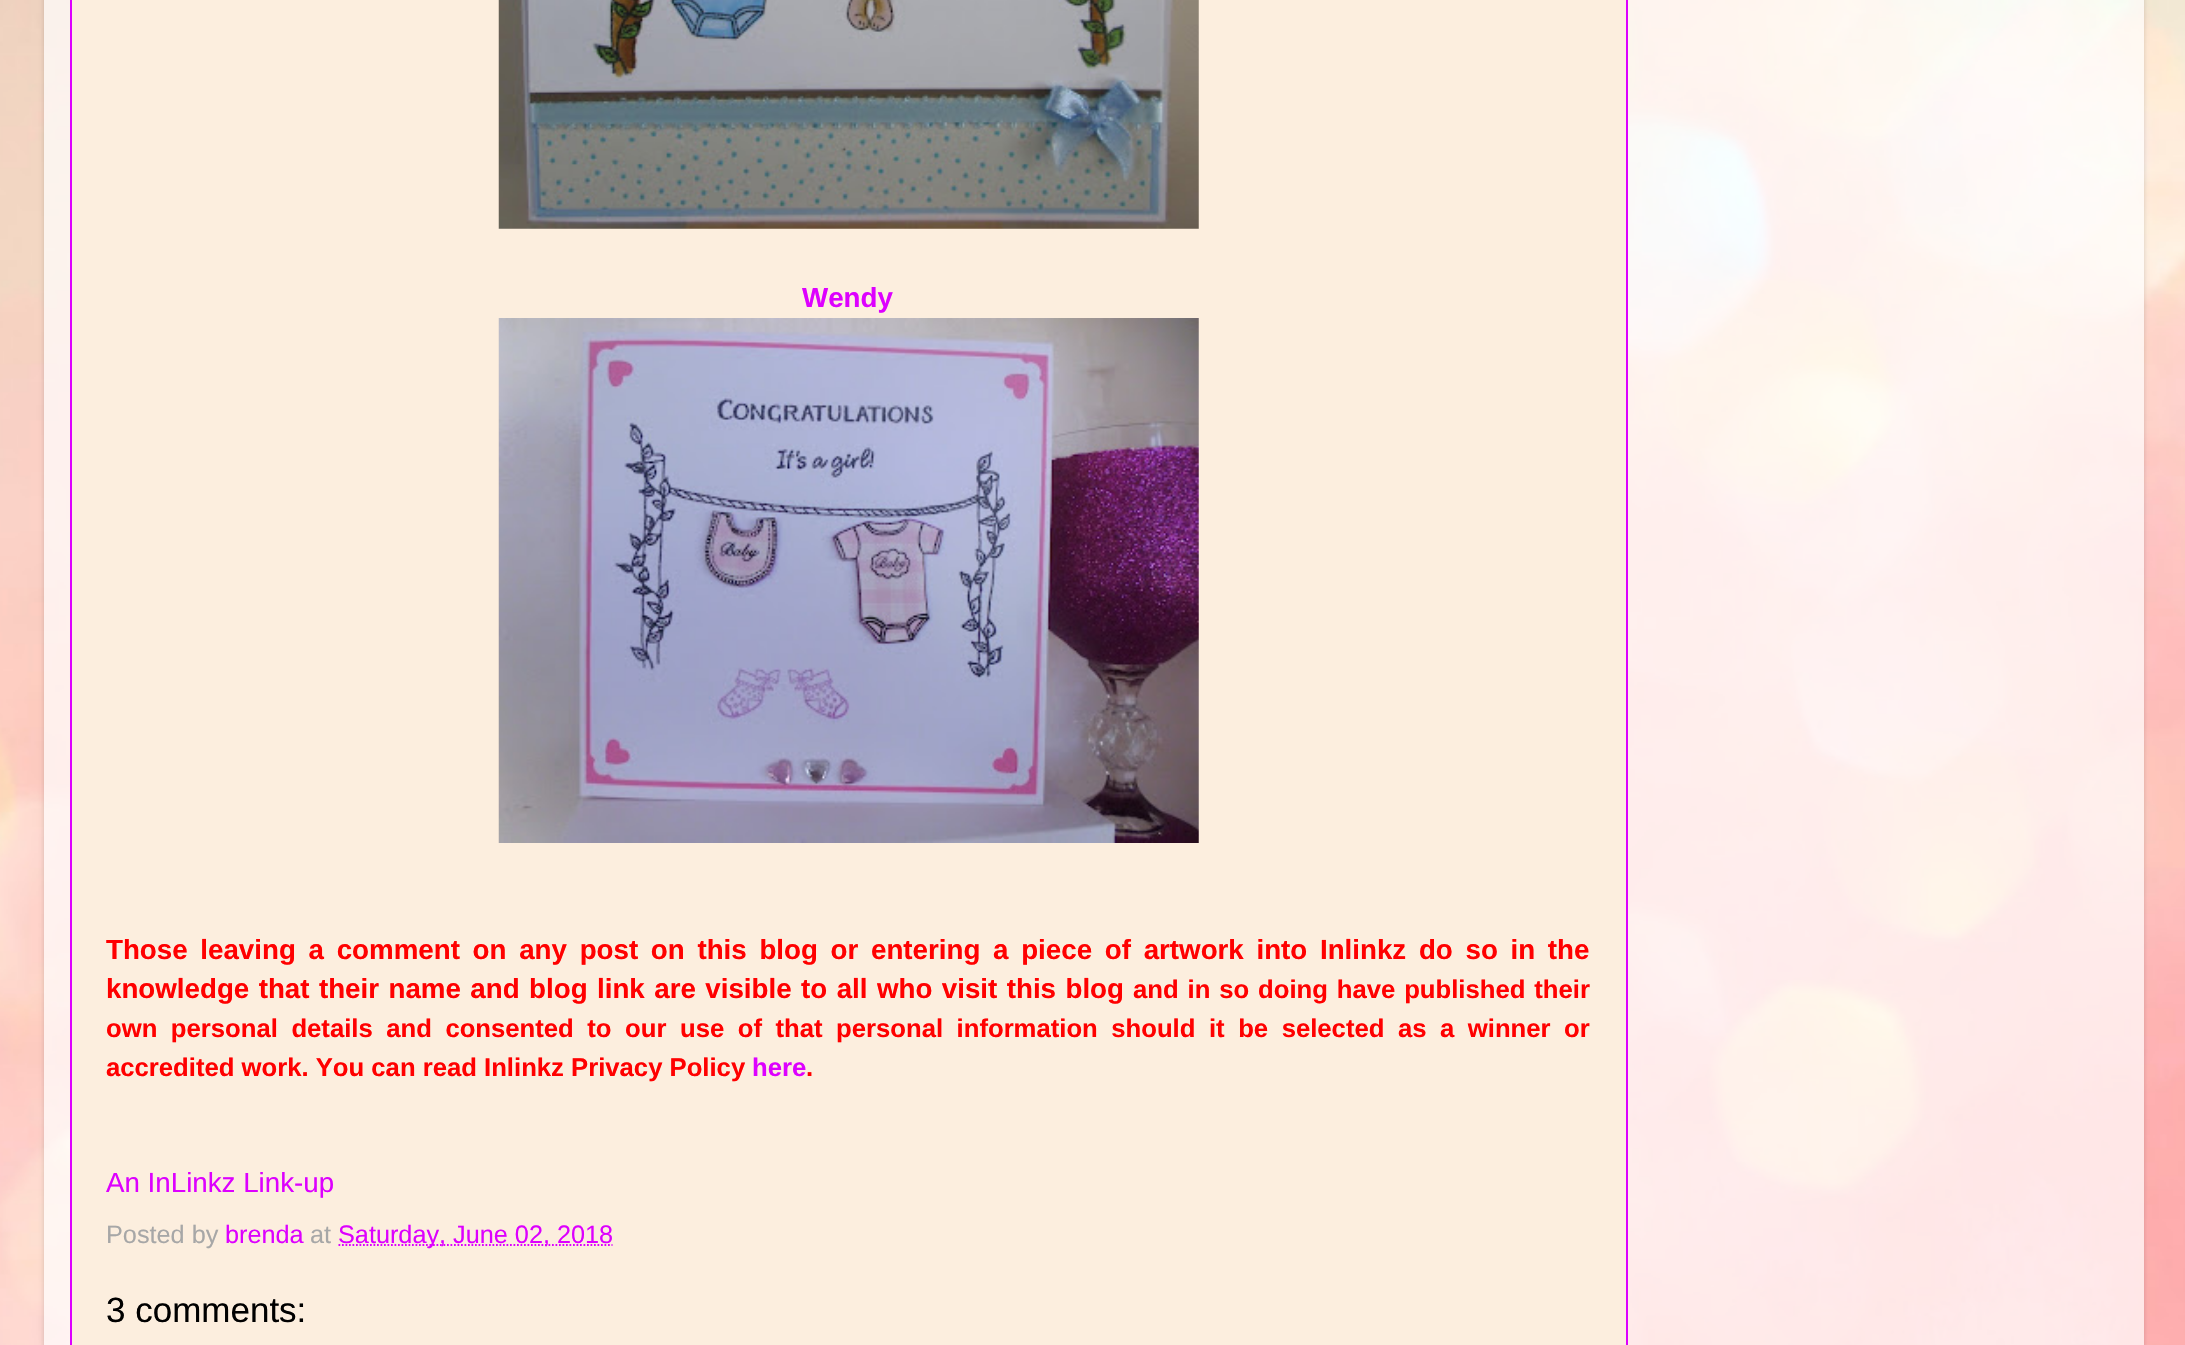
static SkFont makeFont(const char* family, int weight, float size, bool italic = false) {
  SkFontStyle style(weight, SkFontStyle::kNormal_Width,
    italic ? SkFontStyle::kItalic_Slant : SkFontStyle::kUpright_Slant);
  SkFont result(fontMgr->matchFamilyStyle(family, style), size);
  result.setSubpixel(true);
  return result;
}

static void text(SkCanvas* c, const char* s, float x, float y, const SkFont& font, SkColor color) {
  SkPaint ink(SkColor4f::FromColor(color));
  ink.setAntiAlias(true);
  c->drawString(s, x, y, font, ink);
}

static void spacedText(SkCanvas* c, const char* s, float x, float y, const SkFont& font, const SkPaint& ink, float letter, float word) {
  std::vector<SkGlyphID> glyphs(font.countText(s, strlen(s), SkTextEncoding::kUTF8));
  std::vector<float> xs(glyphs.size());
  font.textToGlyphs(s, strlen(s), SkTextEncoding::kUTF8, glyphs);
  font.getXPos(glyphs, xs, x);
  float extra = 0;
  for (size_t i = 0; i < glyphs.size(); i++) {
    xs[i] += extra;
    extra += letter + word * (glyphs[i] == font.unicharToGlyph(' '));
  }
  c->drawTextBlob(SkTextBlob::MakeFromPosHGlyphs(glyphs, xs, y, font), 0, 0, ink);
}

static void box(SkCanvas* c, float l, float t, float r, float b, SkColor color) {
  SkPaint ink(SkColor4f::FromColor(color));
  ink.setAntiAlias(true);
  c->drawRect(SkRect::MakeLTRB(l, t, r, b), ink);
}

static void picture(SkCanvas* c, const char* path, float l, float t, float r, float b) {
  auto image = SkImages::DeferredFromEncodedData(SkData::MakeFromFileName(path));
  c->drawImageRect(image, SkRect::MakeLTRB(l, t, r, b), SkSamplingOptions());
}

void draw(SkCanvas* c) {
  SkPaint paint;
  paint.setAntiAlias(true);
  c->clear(0xffffffff);
  picture(c, "img_01.png", 0, 0, 2185, 1345);
  c->save();
  c->clipPath(SkPathBuilder(SkPathFillType::kEvenOdd).moveTo(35, 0).lineTo(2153, 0).lineTo(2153, 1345).lineTo(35, 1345).close().moveTo(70, -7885).lineTo(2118, -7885).cubicTo(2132.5f, -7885, 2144, -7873.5f, 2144, -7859).lineTo(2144, 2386).cubicTo(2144, 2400.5f, 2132.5f, 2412, 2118, 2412).lineTo(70, 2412).cubicTo(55.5f, 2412, 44, 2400.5f, 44, 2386).lineTo(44, -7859).cubicTo(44, -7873.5f, 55.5f, -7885, 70, -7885).close().detach(), true);
  paint.setColor(0x26000000);
  paint.setMaskFilter(SkMaskFilter::MakeBlur(kNormal_SkBlurStyle, 2.5f));
  c->drawRoundRect(SkRect::MakeLTRB(44, -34, 2144, 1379), 26, 26, paint);
  paint.setMaskFilter(nullptr);
  c->restore();
  box(c, 44, 0, 2144, 1345, 0xb3ffffff);
  paint.setColor(0xfffceede);
  c->drawRect(SkRect::MakeLTRB(71, -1, 1627, 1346), paint);
  paint.setStyle(SkPaint::kStroke_Style);
  paint.setStrokeWidth(2);
  paint.setColor(0xffdd00ff);
  c->drawRect(SkRect::MakeLTRB(71, -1, 1627, 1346), paint);
  picture(c, "img_02.png", 498, 0, 1199, 229);
  SkFont face1 = makeFont("Liberation Sans", 700, 27.72f);
  text(c, "Wendy", 802, 307, face1, 0xffdd00ff);
  picture(c, "img_03.png", 498, 318, 1199, 843);
  paint.setStyle(SkPaint::kFill_Style);
  paint.setColor(0xffff0000);
  spacedText(c, "Those leaving a comment on any post on this blog or entering a piece of artwork into Inlinkz do so in the", 106, 959, face1, paint, 0, 5);
  spacedText(c, "knowledge that their name and blog link are visible to all who visit this blog", 106, 998, face1, paint, 0, 1.75f);
  SkFont face2 = makeFont("Liberation Sans", 700, 25.67f);
  spacedText(c, "and in so doing have published their", 1133, 998, face2, paint, 0, 1.75f);
  spacedText(c, "own personal details and consented to our use of that personal information should it be selected as a winner or", 106, 1037, face2, paint, 0, 6.4f);
  text(c, "accredited work. You can read Inlinkz Privacy Policy", 106, 1076, face2, 0xffff0000);
  text(c, "here", 752, 1076, face2, 0xffdd00ff);
  text(c, ".", 806, 1076, face2, 0xffff0000);
  SkFont face3 = makeFont("Liberation Sans", 400, 27.72f);
  text(c, "An InLinkz Link-up", 106, 1192, face3, 0xffdd00ff);
  SkFont face4 = makeFont("Liberation Sans", 400, 25.25f);
  text(c, "Posted by", 106, 1243, face4, 0xffa7a7a7);
  text(c, "brenda", 225, 1243, face4, 0xffdd00ff);
  text(c, "at", 310, 1243, face4, 0xffa7a7a7);
  paint.setStyle(SkPaint::kStroke_Style);
  paint.setStrokeWidth(1.8f);
  paint.setColor(0xffdd00ff);
  paint.setPathEffect(SkDashPathEffect::Make({{1.75f, 1.75f}}, 0));
  c->drawPath(SkPathBuilder().moveTo(338.5f, 1245).lineTo(612.5f, 1245).detach(), paint);
  paint.setPathEffect(nullptr);
  text(c, "Saturday, June 02, 2018", 338, 1243, face4, 0xffdd00ff);
  SkFont face5 = makeFont("Liberation Sans", 400, 35);
  text(c, "3 comments:", 106, 1322, face5, 0xff000000);
}
